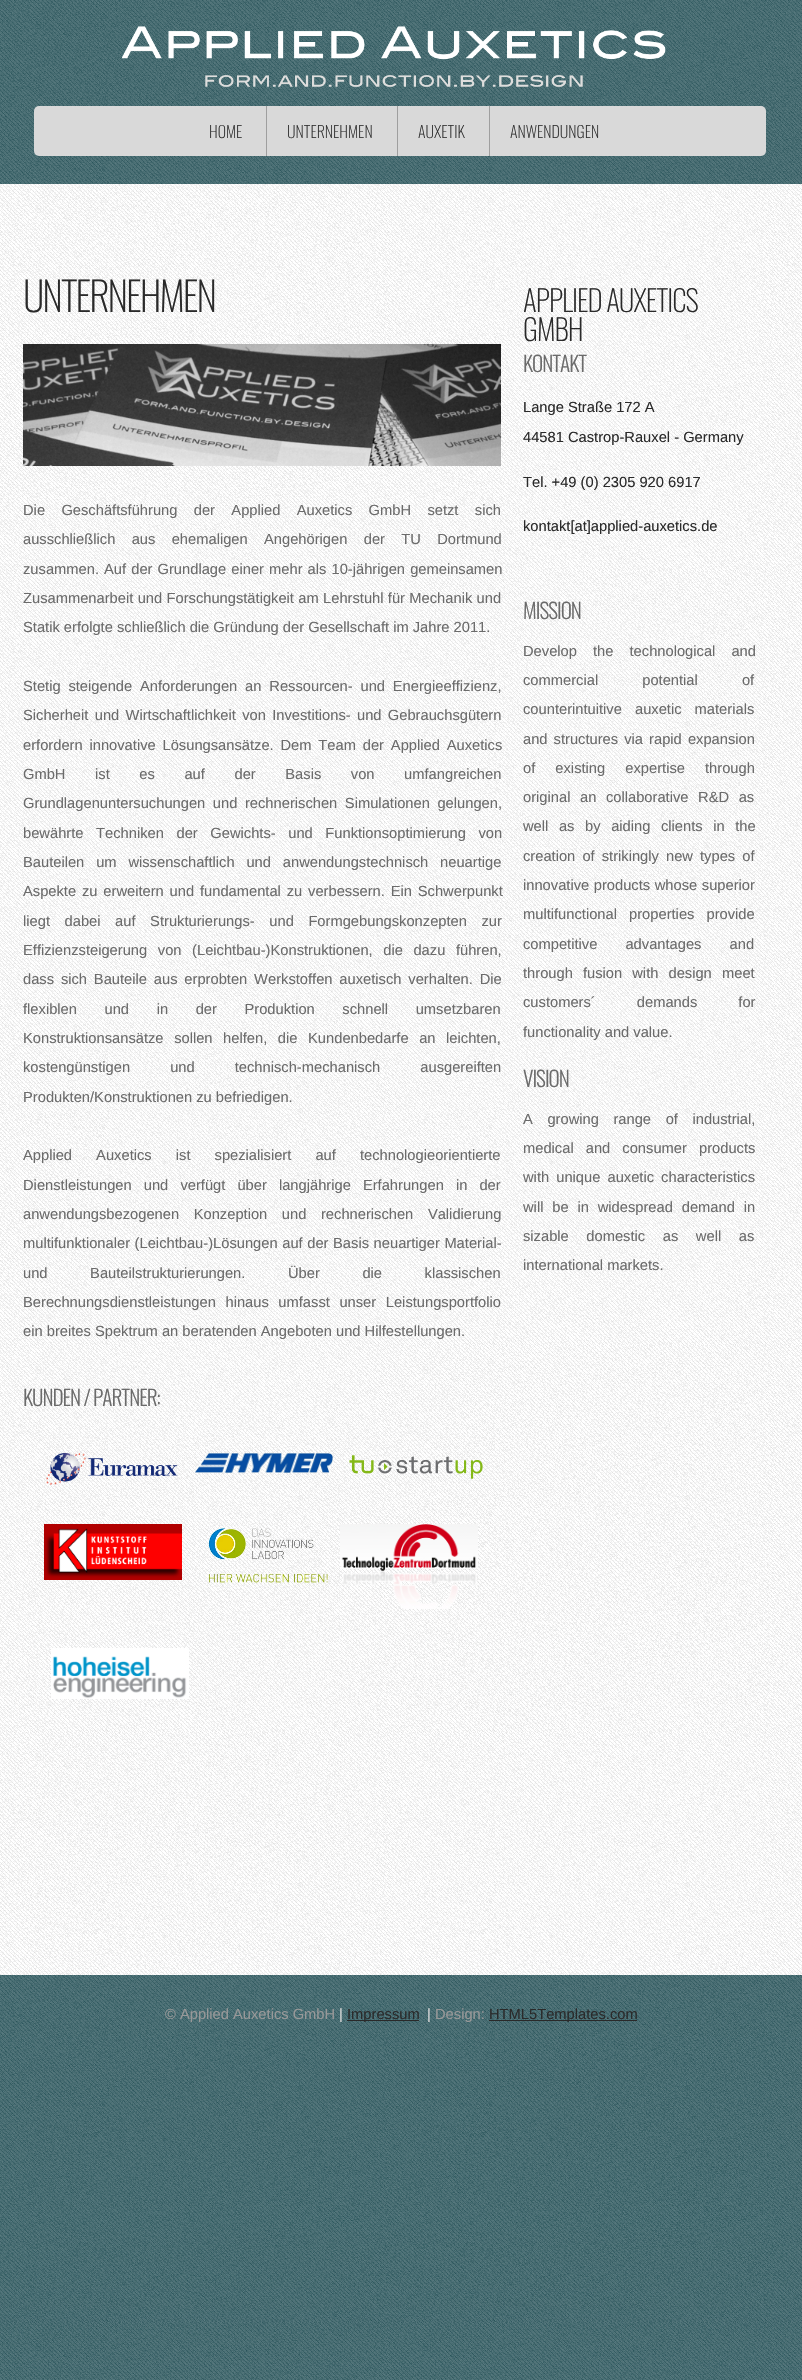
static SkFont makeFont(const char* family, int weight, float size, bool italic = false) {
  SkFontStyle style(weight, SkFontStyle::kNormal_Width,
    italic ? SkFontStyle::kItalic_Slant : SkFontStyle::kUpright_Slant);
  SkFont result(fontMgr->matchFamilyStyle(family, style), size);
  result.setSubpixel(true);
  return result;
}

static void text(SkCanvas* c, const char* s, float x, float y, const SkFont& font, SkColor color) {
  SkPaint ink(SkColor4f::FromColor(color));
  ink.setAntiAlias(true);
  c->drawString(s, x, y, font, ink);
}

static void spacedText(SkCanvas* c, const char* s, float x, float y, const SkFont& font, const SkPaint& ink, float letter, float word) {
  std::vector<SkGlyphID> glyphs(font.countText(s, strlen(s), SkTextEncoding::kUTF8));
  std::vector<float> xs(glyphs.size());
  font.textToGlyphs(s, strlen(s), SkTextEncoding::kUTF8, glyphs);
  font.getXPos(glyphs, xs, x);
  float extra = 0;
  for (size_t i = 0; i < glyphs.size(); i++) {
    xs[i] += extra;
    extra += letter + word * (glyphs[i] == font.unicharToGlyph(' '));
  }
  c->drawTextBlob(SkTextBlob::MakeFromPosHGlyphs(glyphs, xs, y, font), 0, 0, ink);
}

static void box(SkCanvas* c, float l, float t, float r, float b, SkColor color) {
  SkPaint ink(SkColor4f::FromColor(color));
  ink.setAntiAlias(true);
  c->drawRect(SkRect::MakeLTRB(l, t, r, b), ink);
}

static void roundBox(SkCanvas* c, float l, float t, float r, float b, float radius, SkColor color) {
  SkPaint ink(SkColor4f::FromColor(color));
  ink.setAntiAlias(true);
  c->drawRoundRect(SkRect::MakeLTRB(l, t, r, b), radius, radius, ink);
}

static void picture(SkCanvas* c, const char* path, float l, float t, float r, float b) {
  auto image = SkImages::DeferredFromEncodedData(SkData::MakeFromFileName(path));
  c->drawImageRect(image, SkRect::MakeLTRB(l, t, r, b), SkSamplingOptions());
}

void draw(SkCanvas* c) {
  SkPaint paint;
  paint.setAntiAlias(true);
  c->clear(0xffffffff);
  picture(c, "img_01.png", 0, 0, 802, 2380);
  picture(c, "img_02.png", 121, 26, 666, 88);
  roundBox(c, 34, 106, 766, 156, 5, 0xffd9d9d9);
  SkFont face1 = makeFont("Oswald", 200, 16);
  text(c, "HOME", 209, 138, face1, 0xff303030);
  box(c, 266, 106, 267, 156, 0xff9f9f9f);
  text(c, "UNTERNEHMEN", 287, 138, face1, 0xff303030);
  box(c, 397, 106, 398, 156, 0xff9f9f9f);
  text(c, "AUXETIK", 418, 138, face1, 0xff303030);
  box(c, 489, 106, 490, 156, 0xff9f9f9f);
  text(c, "ANWENDUNGEN", 510, 138, face1, 0xff303030);
  picture(c, "img_03.png", 0, 184, 802, 1975);
  SkFont face2 = makeFont("Oswald", 200, 40);
  paint.setColor(0xff2a2a2a);
  spacedText(c, "UNTERNEHMEN", 23, 312, face2, paint, -2, 0);
  picture(c, "img_04.png", 23, 344, 501, 466);
  SkFont face3 = makeFont("Liberation Sans", 400, 14.7f);
  paint.setColor(0xff6b6b6b);
  spacedText(c, "Die Geschäftsführung der Applied Auxetics GmbH setzt sich", 23, 515, face3, paint, 0, 12.25f);
  spacedText(c, "ausschließlich aus ehemaligen Angehörigen der TU Dortmund", 23, 544, face3, paint, 0, 12.25f);
  spacedText(c, "zusammen. Auf der Grundlage einer mehr als 10-jährigen gemeinsamen", 23, 574, face3, paint, 0, 1);
  spacedText(c, "Zusammenarbeit und Forschungstätigkeit am Lehrstuhl für Mechanik und", 23, 603, face3, paint, 0, 0.25f);
  text(c, "Statik erfolgte schließlich die Gründung der Gesellschaft im Jahre 2011.", 23, 632, face3, 0xff6b6b6b);
  spacedText(c, "Stetig steigende Anforderungen an Ressourcen- und Energieeffizienz,", 23, 691, face3, paint, 0, 3.75f);
  spacedText(c, "Sicherheit und Wirtschaftlichkeit von Investitions- und Gebrauchsgütern", 23, 720, face3, paint, 0, 2.25f);
  spacedText(c, "erfordern innovative Lösungsansätze. Dem Team der Applied Auxetics", 23, 750, face3, paint, 0, 2.75f);
  spacedText(c, "GmbH ist es auf der Basis von umfangreichen", 23, 779, face3, paint, 0, 25.5f);
  spacedText(c, "Grundlagenuntersuchungen und rechnerischen Simulationen gelungen,", 23, 808, face3, paint, 0, 3.5f);
  spacedText(c, "bewährte Techniken der Gewichts- und Funktionsoptimierung von", 23, 838, face3, paint, 0, 8.5f);
  spacedText(c, "Bauteilen um wissenschaftlich und anwendungstechnisch neuartige", 23, 867, face3, paint, 0, 7.75f);
  spacedText(c, "Aspekte zu erweitern und fundamental zu verbessern. Ein Schwerpunkt", 23, 896, face3, paint, 0, 1.75f);
  spacedText(c, "liegt dabei auf Strukturierungs- und Formgebungskonzepten zur", 23, 926, face3, paint, 0, 10.5f);
  spacedText(c, "Effizienzsteigerung von (Leichtbau-)Konstruktionen, die dazu führen,", 23, 955, face3, paint, 0, 6.5f);
  spacedText(c, "dass sich Bauteile aus erprobten Werkstoffen auxetisch verhalten. Die", 23, 984, face3, paint, 0, 2.75f);
  spacedText(c, "flexiblen und in der Produktion schnell umsetzbaren", 23, 1014, face3, paint, 0, 23.5f);
  spacedText(c, "Konstruktionsansätze sollen helfen, die Kundenbedarfe an leichten,", 23, 1043, face3, paint, 0, 6.5f);
  spacedText(c, "kostengünstigen und technisch-mechanisch ausgereiften", 23, 1072, face3, paint, 0, 36);
  text(c, "Produkten/Konstruktionen zu befriedigen.", 23, 1102, face3, 0xff6b6b6b);
  spacedText(c, "Applied Auxetics ist spezialisiert auf technologieorientierte", 23, 1160, face3, paint, 0, 20);
  spacedText(c, "Dienstleistungen und verfügt über langjährige Erfahrungen in der", 23, 1190, face3, paint, 0, 8);
  spacedText(c, "anwendungsbezogenen Konzeption und rechnerischen Validierung", 23, 1219, face3, paint, 0, 10.5f);
  spacedText(c, "multifunktionaler (Leichtbau-)Lösungen auf der Basis neuartiger Material-", 23, 1248, face3, paint, 0, 0.5f);
  spacedText(c, "und Bauteilstrukturierungen. Über die klassischen", 23, 1278, face3, paint, 0, 38.5f);
  spacedText(c, "Berechnungsdienstleistungen hinaus umfasst unser Leistungsportfolio", 23, 1307, face3, paint, 0, 5.5f);
  text(c, "ein breites Spektrum an beratenden Angeboten und Hilfestellungen.", 23, 1336, face3, 0xff6b6b6b);
  SkFont face4 = makeFont("Oswald", 300, 21.25f);
  spacedText(c, "KUNDEN / PARTNER:", 23, 1406, face4, paint, -1, 0);
  picture(c, "img_05.png", 46, 1453, 178, 1485);
  picture(c, "img_06.png", 195, 1453, 333, 1473);
  picture(c, "img_07.png", 349, 1455, 483, 1479);
  picture(c, "img_08.png", 44, 1524, 182, 1580);
  picture(c, "img_09.png", 208, 1528, 328, 1583);
  picture(c, "img_10.png", 340, 1524, 478, 1609);
  picture(c, "img_11.png", 51, 1648, 189, 1699);
  SkFont face5 = makeFont("Oswald", 200, 29.25f);
  paint.setColor(0xff2a2a2a);
  spacedText(c, "APPLIED AUXETICS", 523, 312, face5, paint, -1, 0);
  spacedText(c, "GMBH", 523, 341, face5, paint, -1, 0);
  paint.setColor(0xff6b6b6b);
  spacedText(c, "KONTAKT", 523, 372, face4, paint, -1, 0);
  text(c, "Lange Straße 172 A", 523, 412, face3, 0xff2a2a2a);
  text(c, "44581 Castrop-Rauxel - Germany", 523, 442, face3, 0xff2a2a2a);
  text(c, "Tel. +49 (0) 2305 920 6917", 523, 487, face3, 0xff2a2a2a);
  text(c, "kontakt[at]applied-auxetics.de", 523, 531, face3, 0xff2a2a2a);
  spacedText(c, "MISSION", 523, 619, face4, paint, -1, 0);
  spacedText(c, "Develop the technological and", 523, 656, face3, paint, 0, 12);
  spacedText(c, "commercial potential of", 523, 685, face3, paint, 0, 40);
  spacedText(c, "counterintuitive auxetic materials", 523, 714, face3, paint, 0, 9);
  spacedText(c, "and structures via rapid expansion", 523, 744, face3, paint, 0, 2);
  spacedText(c, "of existing expertise through", 523, 773, face3, paint, 0, 16);
  spacedText(c, "original an collaborative R&D as", 523, 802, face3, paint, 0, 5.5f);
  spacedText(c, "well as by aiding clients in the", 523, 831, face3, paint, 0, 6.5f);
  spacedText(c, "creation of strikingly new types of", 523, 861, face3, paint, 0, 3);
  spacedText(c, "innovative products whose superior", 523, 890, face3, paint, 0, 0.5f);
  spacedText(c, "multifunctional properties provide", 523, 919, face3, paint, 0, 8);
  spacedText(c, "competitive advantages and", 523, 949, face3, paint, 0, 24);
  spacedText(c, "through fusion with design", 523, 978, face3, paint, 0, 6);
  text(c, "meet", 722, 978, face3, 0xff6b6b6b);
  spacedText(c, "customers´ demands for", 523, 1007, face3, paint, 0, 37);
  text(c, "functionality and value.", 523, 1037, face3, 0xff6b6b6b);
  spacedText(c, "VISION", 523, 1087, face4, paint, -1, 0);
  spacedText(c, "A growing range of industrial,", 523, 1124, face3, paint, 0, 10.5f);
  spacedText(c, "medical and consumer products", 523, 1153, face3, paint, 0, 8);
  spacedText(c, "with unique auxetic characteristics", 523, 1182, face3, paint, 0, 3);
  spacedText(c, "will be in widespread demand in", 523, 1212, face3, paint, 0, 4.75f);
  spacedText(c, "sizable domestic as well as", 523, 1241, face3, paint, 0, 13.5f);
  text(c, "international markets.", 523, 1270, face3, 0xff6b6b6b);
  text(c, "© Applied Auxetics GmbH", 165, 2019, face3, 0xff999999);
  text(c, "|", 339, 2019, face3, 0xffd9d9d9);
  box(c, 347, 2020, 419, 2021, 0xff292929);
  text(c, "Impressum", 347, 2019, face3, 0xff2a2a2a);
  text(c, "|", 427, 2019, face3, 0xffd9d9d9);
  text(c, "Design:", 435, 2019, face3, 0xff999999);
  box(c, 489, 2020, 637, 2021, 0xff292929);
  text(c, "HTML5Templates.com", 489, 2019, face3, 0xff2a2a2a);
}
